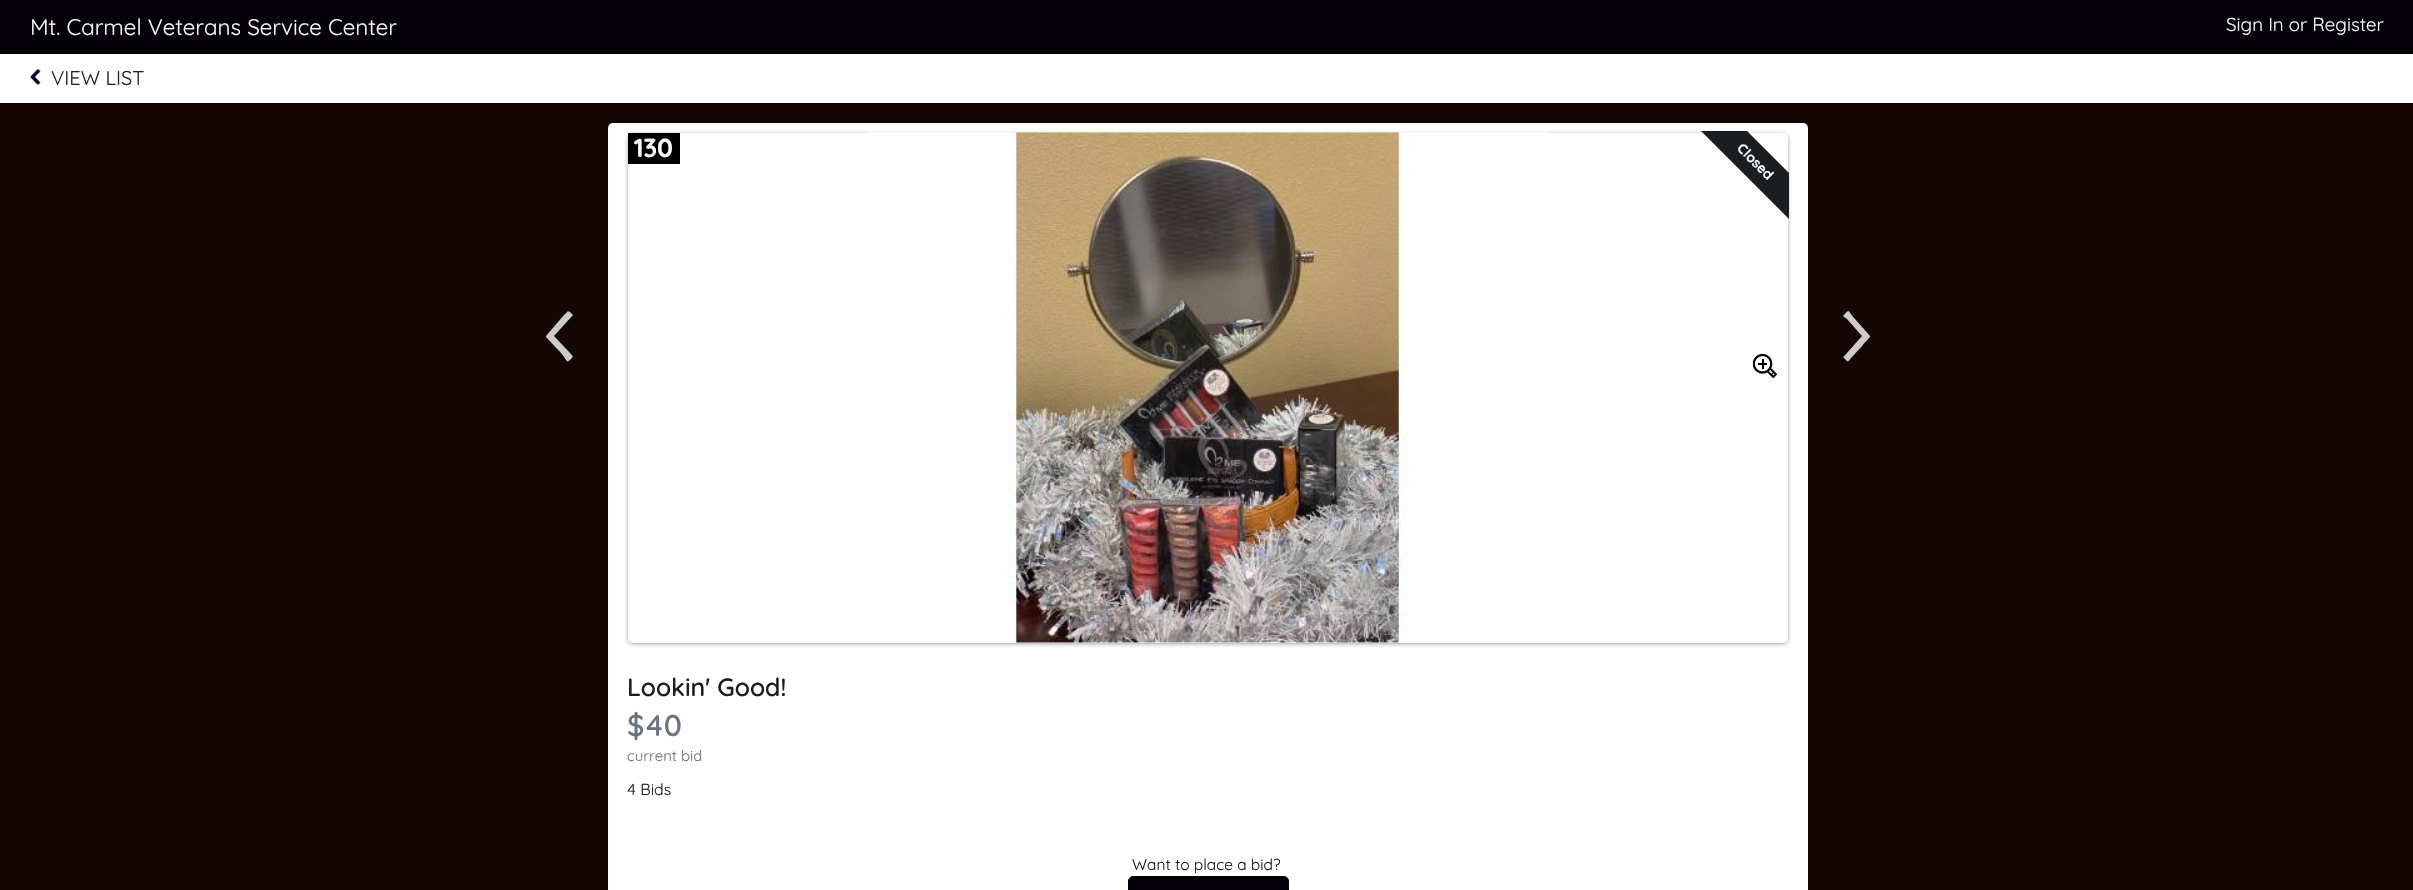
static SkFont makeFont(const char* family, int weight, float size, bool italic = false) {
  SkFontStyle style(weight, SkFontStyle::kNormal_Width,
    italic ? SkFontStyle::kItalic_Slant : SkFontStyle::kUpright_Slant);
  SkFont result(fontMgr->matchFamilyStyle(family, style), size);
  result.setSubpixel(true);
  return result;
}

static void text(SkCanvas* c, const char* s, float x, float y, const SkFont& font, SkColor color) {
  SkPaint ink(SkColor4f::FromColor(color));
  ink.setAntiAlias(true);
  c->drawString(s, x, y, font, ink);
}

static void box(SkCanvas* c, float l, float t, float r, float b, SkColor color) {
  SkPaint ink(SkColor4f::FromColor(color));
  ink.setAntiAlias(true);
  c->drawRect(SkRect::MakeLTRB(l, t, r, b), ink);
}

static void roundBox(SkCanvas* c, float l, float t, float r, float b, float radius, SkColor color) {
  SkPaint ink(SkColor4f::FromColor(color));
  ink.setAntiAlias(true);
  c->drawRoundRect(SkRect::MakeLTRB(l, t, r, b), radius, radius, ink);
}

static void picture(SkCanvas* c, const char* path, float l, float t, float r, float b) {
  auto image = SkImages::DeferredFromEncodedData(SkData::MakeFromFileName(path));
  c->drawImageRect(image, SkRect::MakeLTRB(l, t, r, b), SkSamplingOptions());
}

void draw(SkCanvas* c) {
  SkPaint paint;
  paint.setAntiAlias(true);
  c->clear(0xff150606);
  box(c, 0, 0, 2413, 54, 0xff040007);
  SkFont face1 = makeFont("Quicksand", 400, 22.5f);
  text(c, "Mt. Carmel Veterans Service Center", 30, 35, face1, 0xfffafafa);
  SkFont face2 = makeFont("Quicksand", 400, 18.75f);
  text(c, "Sign In or Register", 2226, 31, face2, 0xfffafafa);
  box(c, 0, 54, 2413, 103, 0xffffffff);
  picture(c, "img_01.png", 30, 68, 41, 85);
  SkFont face3 = makeFont("Quicksand", 400, 20);
  text(c, "VIEW LIST", 51, 85, face3, 0xff222222);
  roundBox(c, 608, 123, 1808, 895, 5, 0xffffffff);
  paint.setColor(0xffcccccc);
  c->drawPath(SkPathBuilder().moveTo(546, 337).lineTo(561, 353).cubicTo(568, 361, 566, 364, 571, 359).cubicTo(574, 356, 573, 357, 570, 353).lineTo(554, 336).lineTo(573, 315).lineTo(570, 312).cubicTo(567, 310, 568, 312, 564, 315).lineTo(546, 336).close().detach(), paint);
  c->save();
  c->clipPath(SkPathBuilder(SkPathFillType::kEvenOdd).moveTo(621, 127).lineTo(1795, 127).lineTo(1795, 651).lineTo(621, 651).close().moveTo(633, 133).lineTo(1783, 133).cubicTo(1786, 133, 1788, 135, 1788, 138).lineTo(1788, 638).cubicTo(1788, 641, 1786, 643, 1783, 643).lineTo(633, 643).cubicTo(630, 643, 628, 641, 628, 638).lineTo(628, 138).cubicTo(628, 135, 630, 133, 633, 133).close().detach(), true);
  paint.setColor(0x66221919);
  paint.setMaskFilter(SkMaskFilter::MakeBlur(kNormal_SkBlurStyle, 2));
  c->drawRoundRect(SkRect::MakeLTRB(628, 134, 1788, 644), 5, 5, paint);
  paint.setMaskFilter(nullptr);
  c->restore();
  box(c, 628, 133, 680, 164, 0xff000000);
  SkFont face4 = makeFont("Quicksand", 700, 26);
  text(c, "130", 634, 157, face4, 0xfffafafa);
  box(c, 868, 642, 1548, 643, 0xffffffff);
  picture(c, "img_02.png", 867, 132, 1547, 643);
  paint.setColor(0xff1b1e21);
  c->drawPath(SkPathBuilder().moveTo(1789, 219).lineTo(1701, 131).lineTo(1747, 131).lineTo(1789, 173).close().detach(), paint);
  SkFont face5 = makeFont("Quicksand", 700, 14);
  c->save();
  c->rotate(45, 1736, 149);
  text(c, "Closed", 1736, 149, face5, 0xfffafafa);
  c->restore();
  picture(c, "img_03.png", 1753, 354, 1778, 379);
  SkFont face6 = makeFont("Quicksand", 500, 25);
  text(c, "Lookin' Good!", 627, 696, face6, 0xff1b1e21);
  SkFont face7 = makeFont("Quicksand", 500, 30);
  text(c, "$40", 627, 736, face7, 0xff6b7280);
  SkFont face8 = makeFont("Quicksand", 400, 15);
  text(c, "current bid", 627, 761, face8, 0xff6b7280);
  SkFont face9 = makeFont("Quicksand", 400, 16);
  text(c, "4 Bids", 627, 795, face9, 0xff1b1e21);
  SkFont face10 = makeFont("Quicksand", 400, 15.6f);
  text(c, "Want to place a bid?", 1132, 870, face10, 0xff1b1e21);
  paint.setColor(0xff040007);
  c->drawRoundRect(SkRect::MakeLTRB(1128.5f, 876.5f, 1288.5f, 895.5f), 4.5f, 4.5f, paint);
  paint.setStyle(SkPaint::kStroke_Style);
  paint.setStrokeWidth(1);
  c->drawRoundRect(SkRect::MakeLTRB(1128.5f, 876.5f, 1288.5f, 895.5f), 4.5f, 4.5f, paint);
  paint.setStyle(SkPaint::kFill_Style);
  paint.setColor(0xffcccccc);
  c->drawPath(SkPathBuilder().moveTo(1870, 336).lineTo(1855, 319).cubicTo(1848, 312, 1850, 308, 1845, 314).cubicTo(1842, 316, 1843, 316, 1847, 319).lineTo(1862, 336).lineTo(1847, 353).cubicTo(1843, 358, 1842, 356, 1846, 360).cubicTo(1849, 363, 1848, 361, 1852, 357).lineTo(1863, 345).cubicTo(1863, 344, 1871, 337, 1870, 336).close().detach(), paint);
}
